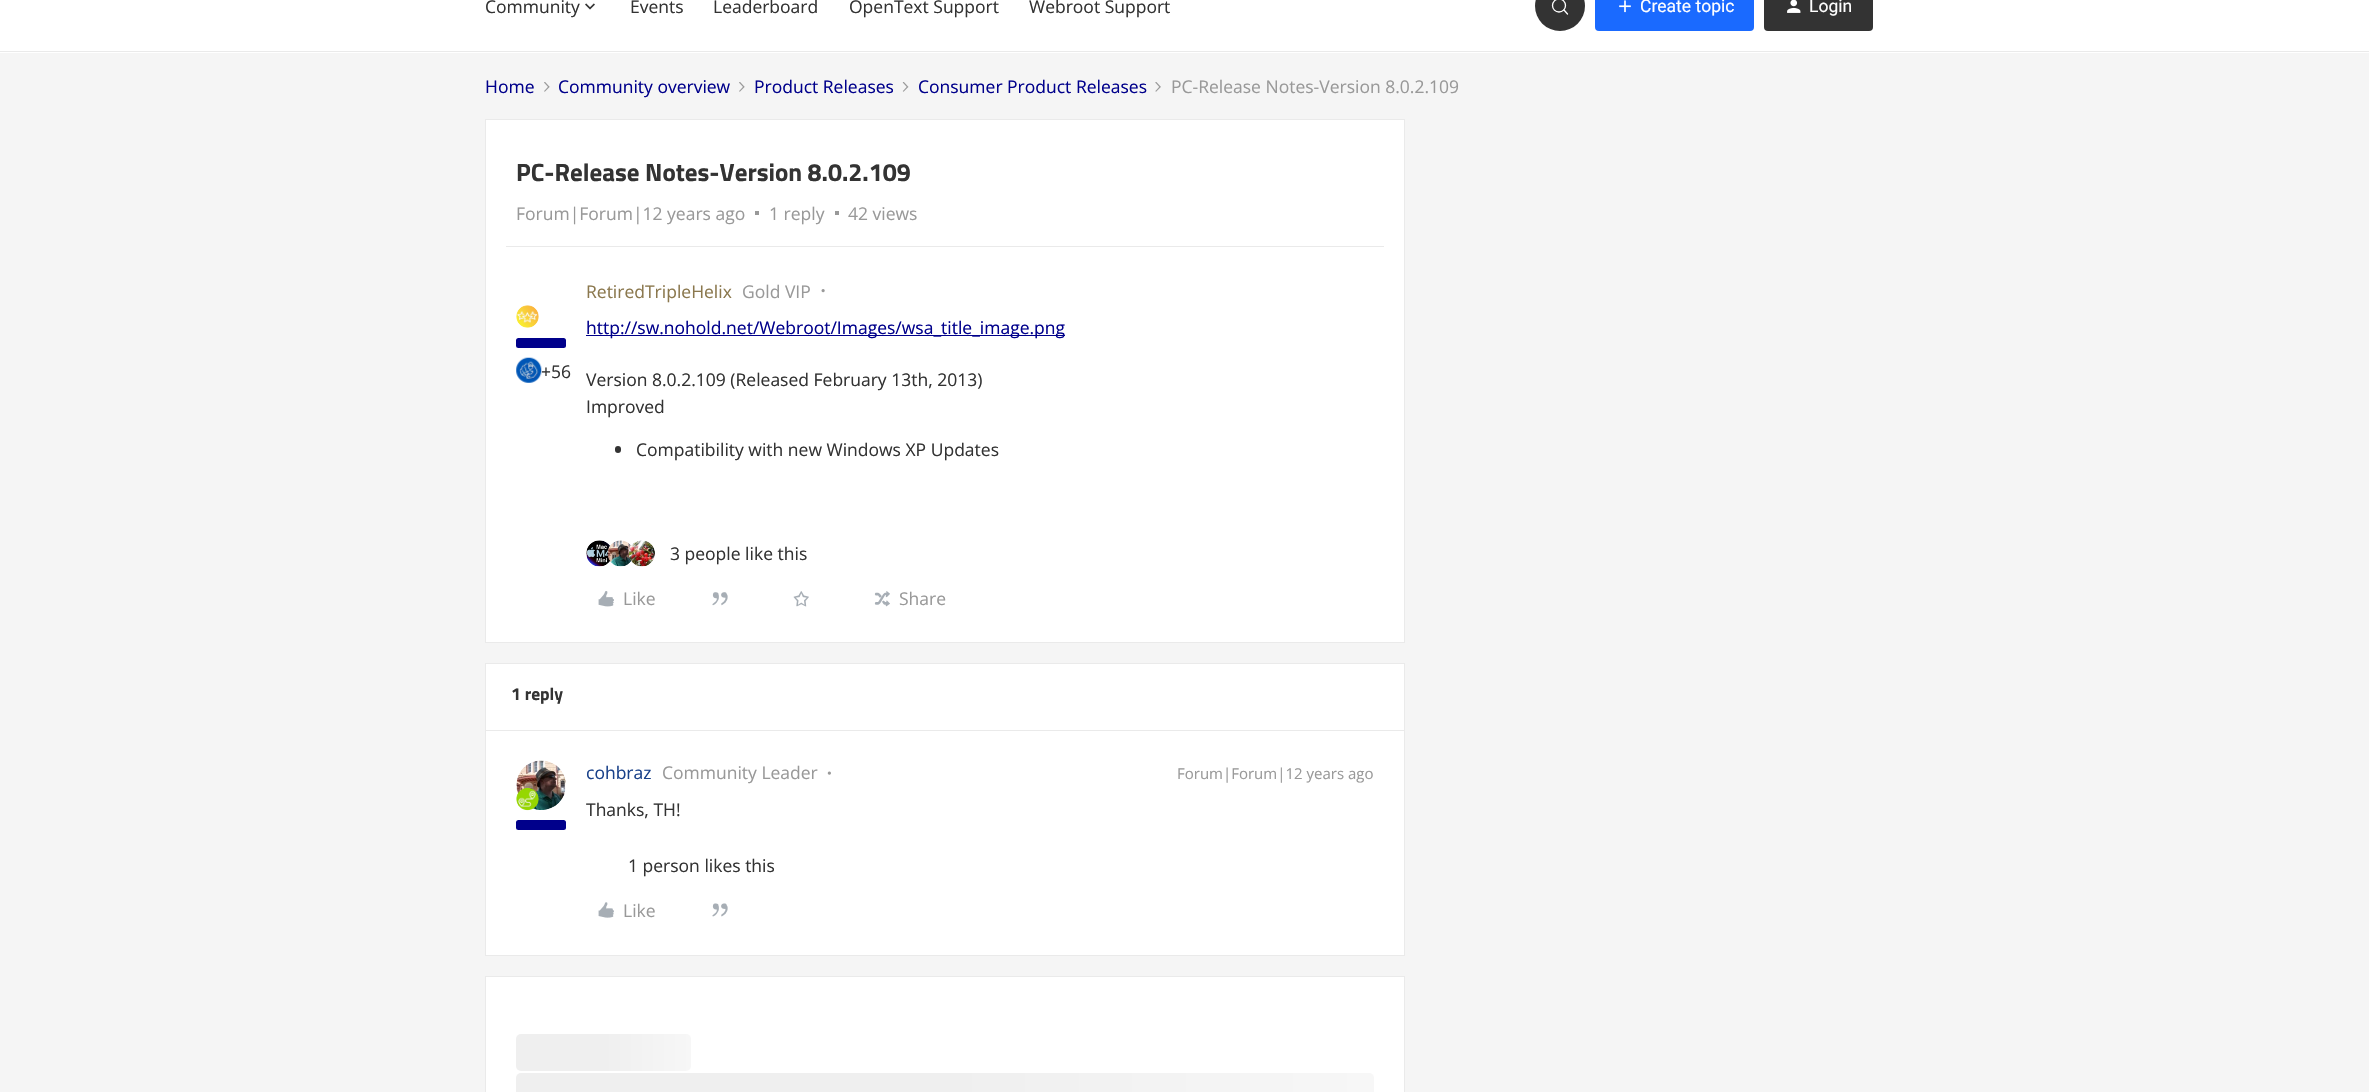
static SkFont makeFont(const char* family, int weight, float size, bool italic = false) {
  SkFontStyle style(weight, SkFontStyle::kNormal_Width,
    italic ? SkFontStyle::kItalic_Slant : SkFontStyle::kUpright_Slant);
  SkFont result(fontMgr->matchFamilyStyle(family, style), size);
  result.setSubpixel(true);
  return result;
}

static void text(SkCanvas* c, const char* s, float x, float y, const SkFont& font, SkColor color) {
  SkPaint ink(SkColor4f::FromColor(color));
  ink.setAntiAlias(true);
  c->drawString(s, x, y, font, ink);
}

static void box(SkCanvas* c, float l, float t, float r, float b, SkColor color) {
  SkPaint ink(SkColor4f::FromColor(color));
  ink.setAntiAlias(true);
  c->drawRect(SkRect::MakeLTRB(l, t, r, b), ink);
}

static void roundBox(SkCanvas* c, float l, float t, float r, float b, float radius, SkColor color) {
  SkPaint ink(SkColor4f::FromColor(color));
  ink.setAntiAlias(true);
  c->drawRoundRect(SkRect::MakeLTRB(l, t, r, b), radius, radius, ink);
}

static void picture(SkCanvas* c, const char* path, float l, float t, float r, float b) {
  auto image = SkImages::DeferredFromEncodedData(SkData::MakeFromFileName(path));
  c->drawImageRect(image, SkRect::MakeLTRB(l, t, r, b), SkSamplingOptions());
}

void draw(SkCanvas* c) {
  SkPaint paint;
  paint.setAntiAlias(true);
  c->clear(0xfff5f5f5);
  box(c, 0, 0, 2369, 53, 0xffffffff);
  box(c, 0, 51, 2369, 52, 0xffeaeaea);
  SkFont face1 = makeFont("Open Sans", 400, 17.5f);
  text(c, "Community", 485, 13, face1, 0xff333333);
  picture(c, "img_01.png", 585, 3, 595, 10);
  text(c, "Events", 630, 13, face1, 0xff333333);
  text(c, "Leaderboard", 713, 13, face1, 0xff333333);
  text(c, "OpenText Support", 849, 13, face1, 0xff333333);
  text(c, "Webroot Support", 1029, 13, face1, 0xff333333);
  paint.setColor(0xff333333);
  c->drawCircle(1560, 6, 25, paint);
  paint.setStyle(SkPaint::kStroke_Style);
  paint.setStrokeWidth(1.3f);
  paint.setColor(0xffffffff);
  c->drawCircle(1559, 5.5f, 6.5f, paint);
  paint.setStrokeCap(SkPaint::kRound_Cap);
  c->drawPath(SkPathBuilder().moveTo(1564, 10).lineTo(1567.5f, 14).detach(), paint);
  roundBox(c, 1595, -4, 1754, 31, 4, 0xff1a6aff);
  picture(c, "img_02.png", 1619, 0, 1631, 13);
  SkFont face2 = makeFont("Roboto", 400, 17.5f);
  text(c, "Create topic", 1640, 12, face2, 0xffffffff);
  roundBox(c, 1764, -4, 1873, 31, 4, 0xff333333);
  picture(c, "img_03.png", 1787, 0, 1801, 13);
  text(c, "Login", 1809, 12, face2, 0xffffffff);
  text(c, "Home", 485, 93, face1, 0xff00008b);
  picture(c, "img_04.png", 544, 82, 550, 92);
  text(c, "Community overview", 558, 93, face1, 0xff00008b);
  picture(c, "img_04.png", 739, 82, 745, 92);
  text(c, "Product Releases", 754, 93, face1, 0xff00008b);
  picture(c, "img_05.png", 902, 82, 909, 92);
  text(c, "Consumer Product Releases", 918, 93, face1, 0xff00008b);
  picture(c, "img_06.png", 1155, 82, 1161, 92);
  text(c, "PC-Release Notes-Version 8.0.2.109", 1171, 93, face1, 0xff999999);
  paint.setStyle(SkPaint::kFill_Style);
  c->drawRect(SkRect::MakeLTRB(485.5f, 119.5f, 1404.5f, 642.5f), paint);
  paint.setStyle(SkPaint::kStroke_Style);
  paint.setStrokeWidth(1);
  paint.setStrokeCap(SkPaint::kButt_Cap);
  paint.setColor(0xffeaeaea);
  c->drawRect(SkRect::MakeLTRB(485.5f, 119.5f, 1404.5f, 642.5f), paint);
  SkFont face3 = makeFont("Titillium", 700, 25);
  text(c, "PC-Release Notes-Version 8.0.2.109", 516, 181, face3, 0xff333333);
  text(c, "Forum|Forum|12 years ago", 516, 220, face1, 0xff999999);
  box(c, 755, 211, 759, 215, 0xff999999);
  text(c, "1 reply", 769, 220, face1, 0xff999999);
  box(c, 835, 211, 839, 215, 0xff999999);
  text(c, "42 views", 848, 220, face1, 0xff999999);
  box(c, 506, 246, 1384, 247, 0xffeaeaea);
  text(c, "RetiredTripleHelix", 586, 298, face1, 0xff8b784e);
  text(c, "Gold VIP", 742, 298, face1, 0xff999999);
  picture(c, "img_07.png", 821, 289, 825, 293);
  picture(c, "img_08.png", 516, 305, 539, 328);
  roundBox(c, 516, 338, 566, 348, 2.5f, 0xff00008b);
  picture(c, "img_09.png", 516, 357, 542, 383);
  text(c, "+56", 541, 378, face1, 0xff333333);
  box(c, 586, 335, 1065, 336, 0xff00008b);
  text(c, "http://sw.nohold.net/Webroot/Images/wsa_title_image.png", 586, 334, face1, 0xff00008b);
  text(c, "Version 8.0.2.109 (Released February 13th, 2013)", 586, 386, face1, 0xff333333);
  text(c, "Improved", 586, 413, face1, 0xff333333);
  roundBox(c, 615, 446, 621, 453, 3, 0xff333333);
  text(c, "Compatibility with new Windows XP Updates", 636, 456, face1, 0xff333333);
  picture(c, "img_10.png", 586, 540, 610, 567);
  paint.setStyle(SkPaint::kFill_Style);
  paint.setColor(0xffffffff);
  c->drawCircle(621, 553, 13, paint);
  picture(c, "img_11.png", 607, 540, 632, 567);
  c->drawCircle(642, 553, 13, paint);
  picture(c, "img_12.png", 629, 540, 655, 567);
  text(c, "3 people like this", 670, 560, face1, 0xff333333);
  picture(c, "img_13.png", 598, 591, 614, 607);
  text(c, "Like", 623, 605, face1, 0xff999999);
  picture(c, "img_14.png", 712, 592, 728, 606);
  picture(c, "img_15.png", 793, 591, 809, 607);
  picture(c, "img_16.png", 874, 591, 890, 607);
  text(c, "Share", 899, 605, face1, 0xff999999);
  c->drawRect(SkRect::MakeLTRB(485.5f, 663.5f, 1404.5f, 955.5f), paint);
  paint.setStyle(SkPaint::kStroke_Style);
  paint.setColor(0xffeaeaea);
  c->drawRect(SkRect::MakeLTRB(485.5f, 663.5f, 1404.5f, 955.5f), paint);
  box(c, 486, 730, 1404, 731, 0xffeaeaea);
  SkFont face4 = makeFont("Titillium", 700, 17.5f);
  text(c, "1 reply", 511, 700, face4, 0xff333333);
  picture(c, "img_17.png", 516, 760, 566, 810);
  picture(c, "img_18.png", 516, 787, 539, 811);
  roundBox(c, 516, 820, 566, 830, 2.5f, 0xff00008b);
  text(c, "cohbraz", 586, 779, face1, 0xff1a428a);
  text(c, "Community Leader", 662, 779, face1, 0xff999999);
  picture(c, "img_19.png", 827, 771, 831, 775);
  SkFont face5 = makeFont("Open Sans", 400, 15);
  text(c, "Forum|Forum|12 years ago", 1177, 779, face5, 0xff999999);
  text(c, "Thanks, TH!", 586, 816, face1, 0xff333333);
  text(c, "1 person likes this", 628, 872, face1, 0xff333333);
  picture(c, "img_20.png", 598, 902, 614, 918);
  text(c, "Like", 623, 917, face1, 0xff999999);
  picture(c, "img_21.png", 712, 903, 728, 917);
  paint.setStyle(SkPaint::kFill_Style);
  paint.setColor(0xffffffff);
  c->drawRect(SkRect::MakeLTRB(485.5f, 976.5f, 1404.5f, 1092.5f), paint);
  paint.setStyle(SkPaint::kStroke_Style);
  paint.setColor(0xffeaeaea);
  c->drawRect(SkRect::MakeLTRB(485.5f, 976.5f, 1404.5f, 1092.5f), paint);
  paint.setStyle(SkPaint::kFill_Style);
  {
    const SkColor colors[] = {0xffefefef, 0xfff7f7f7, 0xffefefef};
    const float stops[] = {0.25f, 0.5f, 0.75f};
    const SkPoint ends[] = {{516, 1053}, {866, 1053}};
    paint.setShader(SkGradientShader::MakeLinear(ends, colors, stops, 3, SkTileMode::kClamp));
    paint.setAlpha(255);
  }
  c->drawRoundRect(SkRect::MakeLTRB(516, 1034, 691, 1071), 5, 5, paint);
  {
    const SkColor colors[] = {0xffefefef, 0xfff7f7f7, 0xffefefef};
    const float stops[] = {0.25f, 0.5f, 0.75f};
    const SkPoint ends[] = {{516, 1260}, {2231, 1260}};
    paint.setShader(SkGradientShader::MakeLinear(ends, colors, stops, 3, SkTileMode::kClamp));
    paint.setAlpha(255);
  }
  c->drawRoundRect(SkRect::MakeLTRB(516, 1073, 1374, 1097), 5, 5, paint);
}
